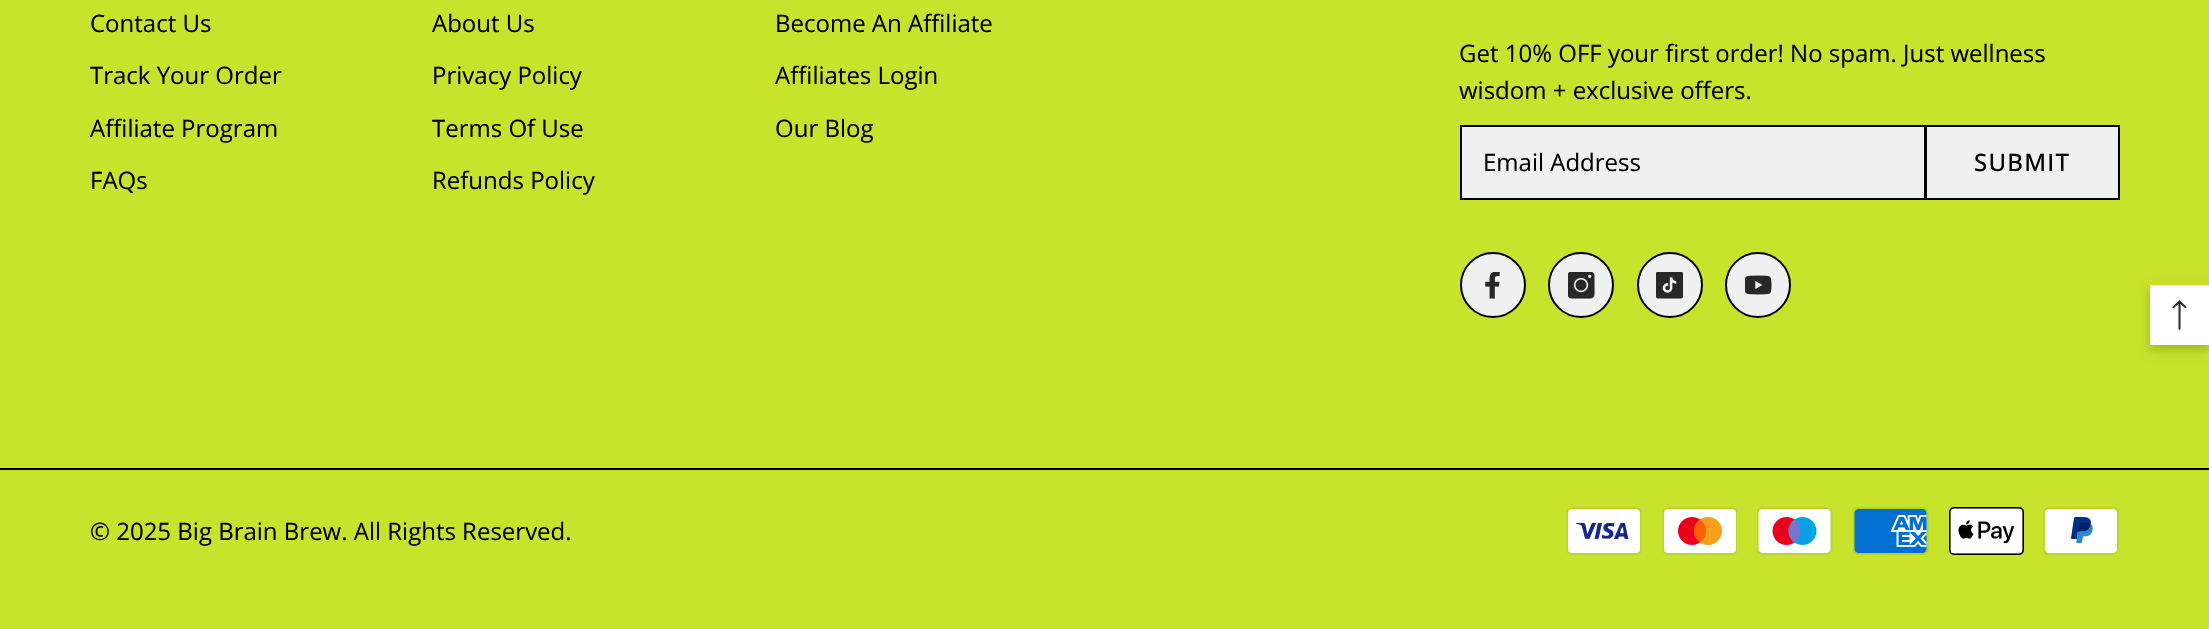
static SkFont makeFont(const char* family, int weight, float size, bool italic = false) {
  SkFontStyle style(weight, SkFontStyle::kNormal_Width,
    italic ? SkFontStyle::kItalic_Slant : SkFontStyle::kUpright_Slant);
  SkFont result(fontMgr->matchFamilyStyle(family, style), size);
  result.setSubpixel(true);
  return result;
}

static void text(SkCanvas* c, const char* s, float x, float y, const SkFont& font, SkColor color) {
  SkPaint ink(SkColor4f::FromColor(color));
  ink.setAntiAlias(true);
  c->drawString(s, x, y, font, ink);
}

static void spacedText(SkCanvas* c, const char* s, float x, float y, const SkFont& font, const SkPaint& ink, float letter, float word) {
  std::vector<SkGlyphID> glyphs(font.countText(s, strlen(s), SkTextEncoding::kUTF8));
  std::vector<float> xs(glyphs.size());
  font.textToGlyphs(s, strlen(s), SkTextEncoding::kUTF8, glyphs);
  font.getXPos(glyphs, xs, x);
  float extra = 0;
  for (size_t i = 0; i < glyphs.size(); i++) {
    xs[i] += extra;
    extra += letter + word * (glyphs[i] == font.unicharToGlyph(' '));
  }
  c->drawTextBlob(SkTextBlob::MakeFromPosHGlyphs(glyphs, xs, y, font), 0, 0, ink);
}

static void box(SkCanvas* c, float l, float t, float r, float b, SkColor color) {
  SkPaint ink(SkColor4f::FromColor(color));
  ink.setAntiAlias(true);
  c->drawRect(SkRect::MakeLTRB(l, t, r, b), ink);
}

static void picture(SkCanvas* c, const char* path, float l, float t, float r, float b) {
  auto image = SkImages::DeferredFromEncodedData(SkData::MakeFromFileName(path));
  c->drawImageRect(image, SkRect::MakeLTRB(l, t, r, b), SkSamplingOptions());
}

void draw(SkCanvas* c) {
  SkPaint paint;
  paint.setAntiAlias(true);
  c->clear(0xffc7e32b);
  SkFont face1 = makeFont("Open Sans", 400, 24);
  text(c, "Contact Us", 90, 32, face1, 0xff000000);
  text(c, "Track Your Order", 90, 84, face1, 0xff000000);
  text(c, "Affiliate Program", 90, 137, face1, 0xff000000);
  text(c, "FAQs", 90, 189, face1, 0xff000000);
  text(c, "About Us", 432, 32, face1, 0xff000000);
  text(c, "Privacy Policy", 432, 84, face1, 0xff000000);
  text(c, "Terms Of Use", 432, 137, face1, 0xff000000);
  text(c, "Refunds Policy", 432, 189, face1, 0xff000000);
  text(c, "Become An Affiliate", 775, 32, face1, 0xff000000);
  text(c, "Affiliates Login", 775, 84, face1, 0xff000000);
  text(c, "Our Blog", 775, 137, face1, 0xff000000);
  text(c, "Get 10% OFF your first order! No spam. Just wellness", 1459, 62, face1, 0xff000000);
  text(c, "wisdom + exclusive offers.", 1459, 99, face1, 0xff000000);
  paint.setColor(0xffeff1f0);
  c->drawRect(SkRect::MakeLTRB(1461, 126, 1925, 199), paint);
  paint.setStyle(SkPaint::kStroke_Style);
  paint.setStrokeWidth(2);
  paint.setColor(0xff000000);
  c->drawRect(SkRect::MakeLTRB(1461, 126, 1925, 199), paint);
  text(c, "Email Address", 1483, 171, face1, 0xff000000);
  paint.setStyle(SkPaint::kFill_Style);
  paint.setColor(0xffeff1f0);
  c->drawRect(SkRect::MakeLTRB(1926, 126, 2119, 199), paint);
  paint.setStyle(SkPaint::kStroke_Style);
  paint.setColor(0xff000000);
  c->drawRect(SkRect::MakeLTRB(1926, 126, 2119, 199), paint);
  SkFont face2 = makeFont("Open Sans", 500, 24);
  paint.setStyle(SkPaint::kFill_Style);
  spacedText(c, "SUBMIT", 1974, 171, face2, paint, 1.25f, 0);
  paint.setColor(0xffeff1f0);
  c->drawCircle(1493, 285, 32, paint);
  paint.setStyle(SkPaint::kStroke_Style);
  paint.setColor(0xff000000);
  c->drawCircle(1493, 285, 32, paint);
  picture(c, "img_01.png", 1485, 272, 1500, 299);
  paint.setStyle(SkPaint::kFill_Style);
  paint.setColor(0xffeff1f0);
  c->drawCircle(1581, 285, 32, paint);
  paint.setStyle(SkPaint::kStroke_Style);
  paint.setColor(0xff000000);
  c->drawCircle(1581, 285, 32, paint);
  picture(c, "img_02.png", 1568, 272, 1595, 299);
  paint.setStyle(SkPaint::kFill_Style);
  paint.setColor(0xffeff1f0);
  c->drawCircle(1670, 285, 32, paint);
  paint.setStyle(SkPaint::kStroke_Style);
  paint.setColor(0xff000000);
  c->drawCircle(1670, 285, 32, paint);
  picture(c, "img_03.png", 1656, 272, 1683, 299);
  paint.setStyle(SkPaint::kFill_Style);
  paint.setColor(0xffeff1f0);
  c->drawCircle(1758, 285, 32, paint);
  paint.setStyle(SkPaint::kStroke_Style);
  paint.setColor(0xff000000);
  c->drawCircle(1758, 285, 32, paint);
  picture(c, "img_04.png", 1745, 275, 1772, 295);
  box(c, 0, 468, 2209, 470, 0xff000000);
  text(c, "© 2025 Big Brain Brew. All Rights Reserved.", 90, 540, face1, 0xff000000);
  picture(c, "img_05.png", 1566, 507, 1642, 555);
  picture(c, "img_06.png", 1662, 507, 1737, 555);
  picture(c, "img_07.png", 1757, 507, 1833, 555);
  picture(c, "img_08.png", 1853, 507, 1929, 555);
  picture(c, "img_09.png", 1949, 507, 2024, 555);
  picture(c, "img_10.png", 2043, 507, 2119, 555);
  paint.setStyle(SkPaint::kFill_Style);
  paint.setColor(0x33000000);
  paint.setMaskFilter(SkMaskFilter::MakeBlur(kNormal_SkBlurStyle, 5));
  c->drawRect(SkRect::MakeLTRB(2150, 290, 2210, 350), paint);
  paint.setMaskFilter(nullptr);
  box(c, 2150, 285, 2209, 345, 0xffffffff);
  picture(c, "img_11.png", 2172, 300, 2187, 330);
}
